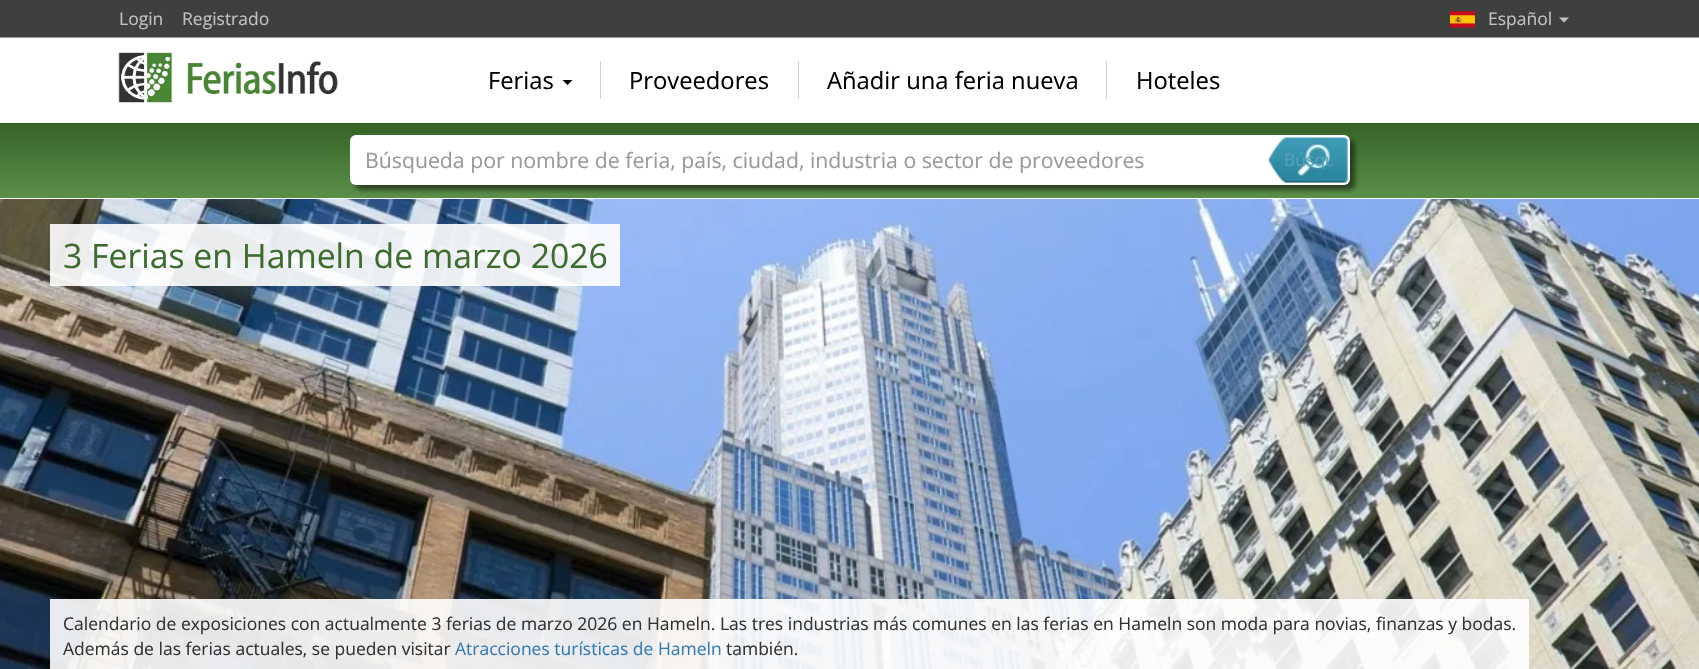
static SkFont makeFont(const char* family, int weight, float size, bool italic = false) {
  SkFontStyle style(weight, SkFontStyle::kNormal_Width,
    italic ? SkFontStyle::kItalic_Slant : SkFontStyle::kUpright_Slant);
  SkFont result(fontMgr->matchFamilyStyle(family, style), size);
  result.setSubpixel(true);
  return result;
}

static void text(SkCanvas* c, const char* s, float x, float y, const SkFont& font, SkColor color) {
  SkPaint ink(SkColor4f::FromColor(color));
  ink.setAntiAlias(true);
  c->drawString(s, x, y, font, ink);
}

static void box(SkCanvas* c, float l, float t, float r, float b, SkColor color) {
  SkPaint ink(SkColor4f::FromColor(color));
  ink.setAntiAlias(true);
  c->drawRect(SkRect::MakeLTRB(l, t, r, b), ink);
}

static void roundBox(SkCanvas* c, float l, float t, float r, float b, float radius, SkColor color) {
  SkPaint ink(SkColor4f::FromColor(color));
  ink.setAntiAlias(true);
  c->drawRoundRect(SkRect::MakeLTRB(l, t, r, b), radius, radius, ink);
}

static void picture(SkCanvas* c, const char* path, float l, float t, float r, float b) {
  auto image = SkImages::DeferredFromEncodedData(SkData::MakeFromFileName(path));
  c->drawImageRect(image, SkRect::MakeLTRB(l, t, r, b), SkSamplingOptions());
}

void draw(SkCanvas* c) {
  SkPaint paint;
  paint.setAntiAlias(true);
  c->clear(0xffffffff);
  picture(c, "img_03.png", 118, 52, 338, 103);
  picture(c, "img_01.png", 0, 0, 1699, 53);
  SkFont face1 = makeFont("Open Sans", 400, 17.5f);
  text(c, "Login", 119, 25, face1, 0xffc1c2c1);
  text(c, "Registrado", 182, 25, face1, 0xffc1c2c1);
  picture(c, "img_02.png", 1450, 11, 1475, 28);
  text(c, "Español", 1488, 25, face1, 0xffc1c2c1);
  paint.setColor(0xffc1c2c1);
  c->drawPath(SkPathBuilder().moveTo(1559, 17.5f).lineTo(1569, 17.5f).lineTo(1564, 22.5f).close().detach(), paint);
  SkFont face2 = makeFont("Open Sans", 400, 23.75f);
  text(c, "Ferias", 488, 89, face2, 0xff000000);
  paint.setColor(0xff000000);
  c->drawPath(SkPathBuilder().moveTo(562.5f, 80).lineTo(572.5f, 80).lineTo(567.5f, 85).close().detach(), paint);
  box(c, 600, 61, 601, 99, 0xffd3d3d3);
  text(c, "Proveedores", 629, 89, face2, 0xff000000);
  box(c, 798, 61, 799, 99, 0xffd3d3d3);
  text(c, "Añadir una feria nueva", 827, 89, face2, 0xff000000);
  box(c, 1106, 61, 1107, 99, 0xffd3d3d3);
  text(c, "Hoteles", 1136, 89, face2, 0xff000000);
  {
    const SkColor colors[] = {0xff356226, 0xff5b9049};
    const float stops[] = {0, 1};
    const SkPoint ends[] = {{850, 122}, {850, 198}};
    paint.setShader(SkGradientShader::MakeLinear(ends, colors, stops, 2, SkTileMode::kClamp));
    paint.setAlpha(255);
  }
  c->drawRect(SkRect::MakeLTRB(0, 123, 1699, 198), paint);
  paint.setShader(nullptr);
  paint.setColor(0x80000000);
  paint.setMaskFilter(SkMaskFilter::MakeBlur(kNormal_SkBlurStyle, 2.5f));
  c->drawRoundRect(SkRect::MakeLTRB(355, 140, 1355, 190), 6, 6, paint);
  paint.setMaskFilter(nullptr);
  roundBox(c, 350, 135, 1350, 185, 6, 0xffffffff);
  SkFont face3 = makeFont("Open Sans", 400, 21.25f);
  text(c, "Búsqueda por nombre de feria, país, ciudad, industria o sector de proveedores", 365, 168, face3, 0xff999999);
  picture(c, "img_04.png", 1268, 137, 1348, 184);
  c->save();
  c->clipRect(SkRect::MakeLTRB(1284, 151, 1333, 169));
  text(c, "Búsqu", 1284, 166, face1, 0xff55a2b7);
  c->restore();
  picture(c, "img_05.png", 0, 199, 1699, 669);
  box(c, 50, 224, 620, 286, 0xe6ffffff);
  SkFont face4 = makeFont("Open Sans", 400, 33.75f);
  text(c, "3 Ferias en Hameln de marzo 2026", 63, 268, face4, 0xff3e6c2f);
  box(c, 50, 599, 1529, 669, 0xe6ffffff);
  text(c, "Calendario de exposiciones con actualmente 3 ferias de marzo 2026 en Hameln. Las tres industrias más comunes en las ferias en Hameln son moda para novias, finanzas y bodas.", 63, 630, face1, 0xff333333);
  text(c, "Además de las ferias actuales, se pueden visitar", 63, 655, face1, 0xff333333);
  text(c, "Atracciones turísticas de Hameln", 455, 655, face1, 0xff337ab7);
  text(c, "también.", 726, 655, face1, 0xff333333);
}
